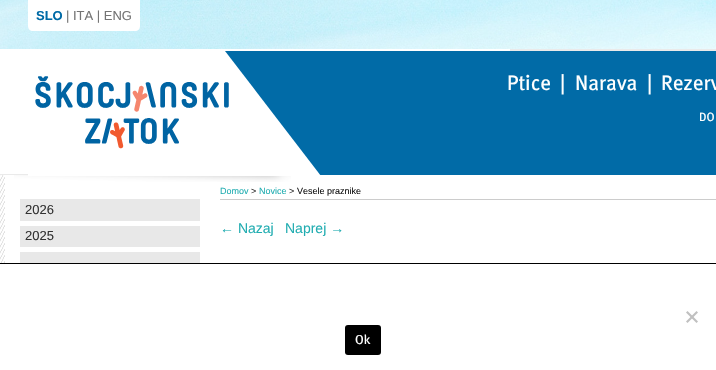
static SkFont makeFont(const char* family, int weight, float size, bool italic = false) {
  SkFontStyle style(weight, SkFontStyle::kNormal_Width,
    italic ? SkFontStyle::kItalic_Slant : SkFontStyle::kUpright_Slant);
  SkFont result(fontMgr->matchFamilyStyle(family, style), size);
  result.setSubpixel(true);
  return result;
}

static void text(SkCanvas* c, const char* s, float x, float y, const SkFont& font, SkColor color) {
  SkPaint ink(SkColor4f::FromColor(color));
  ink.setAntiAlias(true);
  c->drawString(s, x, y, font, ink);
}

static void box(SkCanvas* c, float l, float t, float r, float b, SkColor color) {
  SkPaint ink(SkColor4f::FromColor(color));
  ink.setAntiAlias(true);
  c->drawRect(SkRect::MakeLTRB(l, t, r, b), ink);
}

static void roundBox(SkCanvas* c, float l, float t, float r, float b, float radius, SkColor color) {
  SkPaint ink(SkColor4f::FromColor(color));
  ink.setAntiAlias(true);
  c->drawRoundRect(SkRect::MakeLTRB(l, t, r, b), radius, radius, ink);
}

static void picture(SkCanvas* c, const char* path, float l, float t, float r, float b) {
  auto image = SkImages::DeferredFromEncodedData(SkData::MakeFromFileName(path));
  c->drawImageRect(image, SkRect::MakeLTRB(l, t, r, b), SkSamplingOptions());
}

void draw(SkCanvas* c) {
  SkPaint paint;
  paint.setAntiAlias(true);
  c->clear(0xffeaeaea);
  picture(c, "img_01.png", 0, 0, 716, 49);
  paint.setColor(0xffffffff);
  c->drawPath(SkPathBuilder().moveTo(28, 0).lineTo(140, 0).lineTo(140, 26).cubicTo(140, 29, 138, 31, 135, 31).lineTo(33, 31).cubicTo(30, 31, 28, 29, 28, 26).close().detach(), paint);
  SkFont face1 = makeFont("Liberation Sans", 700, 13);
  text(c, "SLO", 36, 20, face1, 0xff006aa6);
  SkFont face2 = makeFont("Liberation Sans", 400, 13);
  text(c, "| ITA | ENG", 66, 20, face2, 0xff747474);
  box(c, 0, 49, 510, 174, 0xffffffff);
  box(c, 225, 51, 716, 175, 0xff016ba7);
  box(c, 5, 175, 716, 263, 0xffffffff);
  picture(c, "img_04.png", 14, 175, 291, 182);
  picture(c, "img_02.png", 28, 51, 321, 176);
  SkFont face3 = makeFont("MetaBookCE", 400, 21);
  text(c, "Ptice", 507, 90, face3, 0xffffffff);
  text(c, "|", 560, 90, face3, 0xffffffff);
  text(c, "Narava", 575, 90, face3, 0xffffffff);
  text(c, "|", 647, 90, face3, 0xffffffff);
  text(c, "Rezerv", 661, 90, face3, 0xffffffff);
  SkFont face4 = makeFont("MetaBookCE", 400, 12);
  text(c, "DO", 699, 121, face4, 0xffffffff);
  picture(c, "img_03.png", 0, 175, 5, 263);
  box(c, 20, 199, 200, 221, 0xffe8e8e8);
  text(c, "2026", 25, 214, face2, 0xff323232);
  box(c, 20, 226, 200, 247, 0xffe8e8e8);
  text(c, "2025", 25, 240, face2, 0xff323232);
  box(c, 20, 252, 200, 263, 0xffe8e8e8);
  box(c, 220, 199, 716, 200, 0xffcccccc);
  SkFont face5 = makeFont("Liberation Sans", 400, 9);
  text(c, "Domov", 220, 194, face5, 0xff21adb1);
  text(c, ">", 251, 194, face5, 0xff323232);
  text(c, "Novice", 259, 194, face5, 0xff21adb1);
  text(c, ">", 289, 194, face5, 0xff323232);
  text(c, "Vesele praznike", 297, 194, face5, 0xff111111);
  SkFont face6 = makeFont("Liberation Sans", 400, 14);
  text(c, "← Nazaj", 220, 233, face6, 0xff21adb1);
  text(c, "Naprej →", 285, 233, face6, 0xff21adb1);
  box(c, 0, 264, 716, 370, 0xffffffff);
  box(c, 0, 263, 716, 264, 0xff000000);
  paint.setColor(0xffc0c0c0);
  c->drawPath(SkPathBuilder().moveTo(696.5f, 311).lineTo(698, 312.5f).lineTo(687.5f, 323).lineTo(686, 321.5f).close().detach(), paint);
  c->drawPath(SkPathBuilder().moveTo(686, 312.5f).lineTo(687.5f, 311).lineTo(698, 321.5f).lineTo(696.5f, 323).close().detach(), paint);
  roundBox(c, 345, 325, 381, 355, 3, 0xff000000);
  SkFont face7 = makeFont("MetaBookCE", 400, 13);
  text(c, "Ok", 355, 344, face7, 0xffffffff);
}
